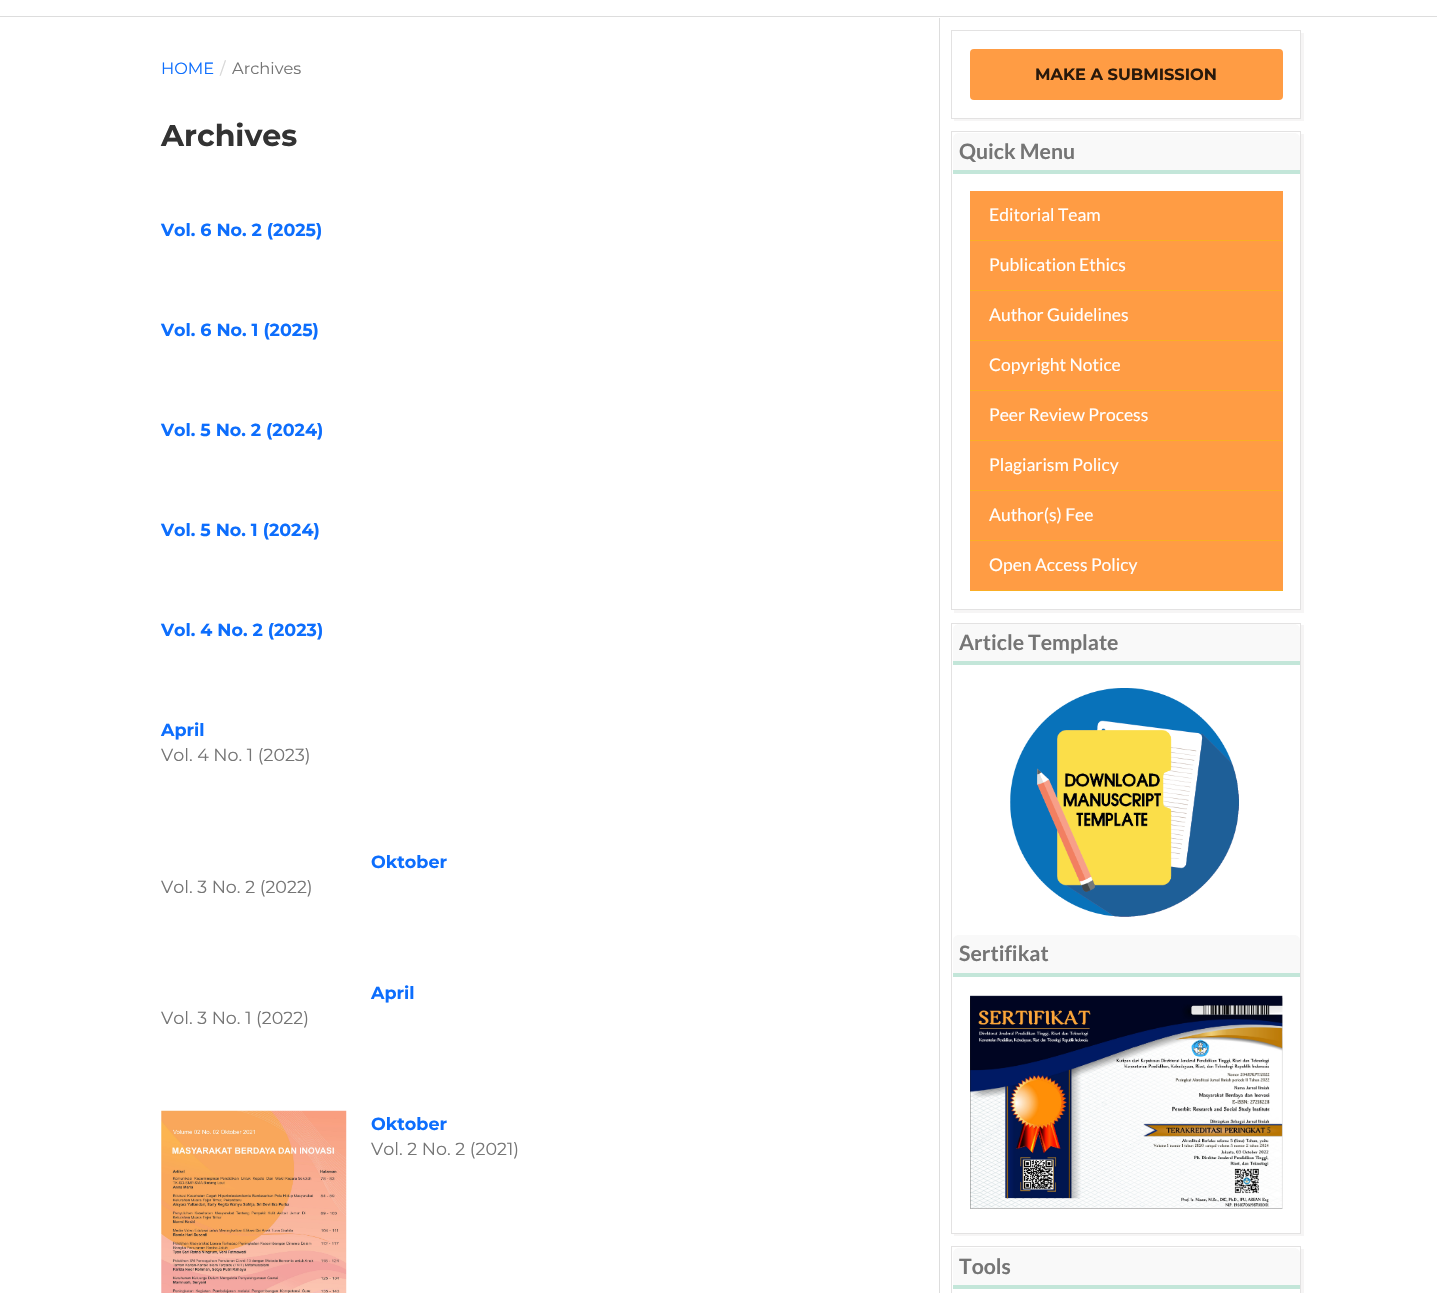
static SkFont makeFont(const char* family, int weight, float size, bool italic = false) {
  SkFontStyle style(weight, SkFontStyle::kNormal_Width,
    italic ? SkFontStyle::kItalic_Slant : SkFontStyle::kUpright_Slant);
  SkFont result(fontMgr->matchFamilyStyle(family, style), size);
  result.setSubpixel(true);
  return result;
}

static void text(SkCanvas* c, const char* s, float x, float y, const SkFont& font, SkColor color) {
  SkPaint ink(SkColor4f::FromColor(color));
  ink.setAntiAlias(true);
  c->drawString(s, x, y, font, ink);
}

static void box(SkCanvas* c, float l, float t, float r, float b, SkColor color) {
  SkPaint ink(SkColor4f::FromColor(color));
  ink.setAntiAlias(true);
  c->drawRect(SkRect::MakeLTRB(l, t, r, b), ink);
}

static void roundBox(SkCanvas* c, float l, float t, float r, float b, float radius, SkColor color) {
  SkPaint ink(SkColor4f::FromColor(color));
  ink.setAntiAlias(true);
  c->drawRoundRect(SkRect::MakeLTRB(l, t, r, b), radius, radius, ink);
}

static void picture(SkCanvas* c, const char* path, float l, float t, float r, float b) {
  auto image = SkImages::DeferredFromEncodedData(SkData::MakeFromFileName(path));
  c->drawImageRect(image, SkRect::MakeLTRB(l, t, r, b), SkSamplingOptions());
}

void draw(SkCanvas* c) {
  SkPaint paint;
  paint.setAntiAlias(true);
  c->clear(0xffffffff);
  box(c, 0, 16, 1437, 17, 0xffdddddd);
  SkFont face1 = makeFont("Montserrat", 400, 16.25f);
  text(c, "HOME", 161, 74, face1, 0xff0d6efd);
  text(c, "/", 220, 74, face1, 0xffd6d6d6);
  text(c, "Archives", 232, 74, face1, 0xff757575);
  SkFont face2 = makeFont("Montserrat", 700, 30);
  text(c, "Archives", 161, 146, face2, 0xff333333);
  SkFont face3 = makeFont("Montserrat", 700, 17.5f);
  text(c, "Vol. 6 No. 2 (2025)", 161, 236, face3, 0xff0d6efd);
  text(c, "Vol. 6 No. 1 (2025)", 161, 336, face3, 0xff0d6efd);
  text(c, "Vol. 5 No. 2 (2024)", 161, 436, face3, 0xff0d6efd);
  text(c, "Vol. 5 No. 1 (2024)", 161, 536, face3, 0xff0d6efd);
  text(c, "Vol. 4 No. 2 (2023)", 161, 636, face3, 0xff0d6efd);
  text(c, "April", 161, 736, face3, 0xff0d6efd);
  SkFont face4 = makeFont("Montserrat", 400, 17.5f);
  text(c, "Vol. 4 No. 1 (2023)", 161, 761, face4, 0xff757575);
  text(c, "Oktober", 371, 868, face3, 0xff0d6efd);
  text(c, "Vol. 3 No. 2 (2022)", 161, 893, face4, 0xff757575);
  text(c, "April", 371, 999, face3, 0xff0d6efd);
  text(c, "Vol. 3 No. 1 (2022)", 161, 1024, face4, 0xff757575);
  picture(c, "img_01.png", 161, 1110, 347, 1293);
  text(c, "Oktober", 371, 1130, face3, 0xff0d6efd);
  text(c, "Vol. 2 No. 2 (2021)", 371, 1155, face4, 0xff757575);
  box(c, 939, 18, 940, 1293, 0xffdddddd);
  paint.setColor(0xfff6f5f5);
  c->drawPath(SkPathBuilder().moveTo(954, 119).lineTo(954, 121).lineTo(1304, 121).lineTo(1304, 33).lineTo(1301, 33).lineTo(1301, 119).close().detach(), paint);
  paint.setStyle(SkPaint::kStroke_Style);
  paint.setStrokeWidth(1);
  paint.setColor(0xffe3e2e2);
  c->drawRect(SkRect::MakeLTRB(951.5f, 30.5f, 1300.5f, 118.5f), paint);
  roundBox(c, 970, 49, 1283, 100, 4, 0xffff9c44);
  SkFont face5 = makeFont("Montserrat", 700, 16.25f);
  text(c, "MAKE A SUBMISSION", 1035, 80, face5, 0xff29190b);
  paint.setStyle(SkPaint::kFill_Style);
  paint.setColor(0xfff6f5f5);
  c->drawPath(SkPathBuilder().moveTo(954, 610).lineTo(954, 613).lineTo(1304, 613).lineTo(1304, 134).lineTo(1301, 134).lineTo(1301, 610).close().detach(), paint);
  paint.setStyle(SkPaint::kStroke_Style);
  paint.setColor(0xffe3e2e2);
  c->drawRect(SkRect::MakeLTRB(951.5f, 131.5f, 1300.5f, 609.5f), paint);
  paint.setStyle(SkPaint::kFill_Style);
  paint.setColor(0xfff9f9f9);
  c->drawPath(SkPathBuilder().moveTo(959, 133).lineTo(1294, 133).cubicTo(1297.5f, 133, 1300, 135.5f, 1300, 139).lineTo(1300, 174).lineTo(953, 174).lineTo(953, 139).cubicTo(953, 135.5f, 955.5f, 133, 959, 133).close().detach(), paint);
  box(c, 953, 170, 1300, 174, 0xffc3e6d9);
  SkFont face6 = makeFont("Lato", 700, 21.25f);
  text(c, "Quick Menu", 959, 159, face6, 0xff757575);
  box(c, 970, 191, 1283, 240, 0xffff9c44);
  box(c, 970, 240, 1283, 241, 0xfffaaf25);
  SkFont face7 = makeFont("Lato", 400, 17.5f);
  text(c, "Editorial Team", 989, 221, face7, 0xffffffff);
  box(c, 970, 241, 1283, 290, 0xffff9c44);
  box(c, 970, 290, 1283, 291, 0xfffaaf25);
  text(c, "Publication Ethics", 989, 271, face7, 0xffffffff);
  box(c, 970, 291, 1283, 340, 0xffff9c44);
  box(c, 970, 340, 1283, 341, 0xfffaaf25);
  text(c, "Author Guidelines", 989, 321, face7, 0xffffffff);
  box(c, 970, 341, 1283, 390, 0xffff9c44);
  box(c, 970, 390, 1283, 391, 0xfffaaf25);
  text(c, "Copyright Notice", 989, 371, face7, 0xffffffff);
  box(c, 970, 391, 1283, 440, 0xffff9c44);
  box(c, 970, 440, 1283, 441, 0xfffaaf25);
  text(c, "Peer Review Process", 989, 421, face7, 0xffffffff);
  box(c, 970, 441, 1283, 490, 0xffff9c44);
  box(c, 970, 490, 1283, 491, 0xfffaaf25);
  text(c, "Plagiarism Policy", 989, 471, face7, 0xffffffff);
  box(c, 970, 491, 1283, 540, 0xffff9c44);
  box(c, 970, 540, 1283, 541, 0xfffaaf25);
  text(c, "Author(s) Fee", 989, 521, face7, 0xffffffff);
  box(c, 970, 541, 1283, 590, 0xffff9c44);
  box(c, 970, 590, 1283, 591, 0xfffaaf25);
  text(c, "Open Access Policy", 989, 571, face7, 0xffffffff);
  paint.setColor(0xfff6f5f5);
  c->drawPath(SkPathBuilder().moveTo(954, 1234).lineTo(954, 1236).lineTo(1304, 1236).lineTo(1304, 625).lineTo(1301, 625).lineTo(1301, 1234).close().detach(), paint);
  paint.setStyle(SkPaint::kStroke_Style);
  paint.setColor(0xffe3e2e2);
  c->drawRect(SkRect::MakeLTRB(951.5f, 623.5f, 1300.5f, 1233.5f), paint);
  paint.setStyle(SkPaint::kFill_Style);
  paint.setColor(0xfff9f9f9);
  c->drawPath(SkPathBuilder().moveTo(959, 624).lineTo(1294, 624).cubicTo(1297.5f, 624, 1300, 626.5f, 1300, 630).lineTo(1300, 665).lineTo(953, 665).lineTo(953, 630).cubicTo(953, 626.5f, 955.5f, 624, 959, 624).close().detach(), paint);
  box(c, 953, 661, 1300, 665, 0xffc3e6d9);
  text(c, "Article Template", 959, 650, face6, 0xff757575);
  picture(c, "img_02.png", 1010, 688, 1239, 917);
  c->drawPath(SkPathBuilder().moveTo(959, 935).lineTo(1294, 935).cubicTo(1297.5f, 935, 1300, 937.5f, 1300, 941).lineTo(1300, 976).lineTo(953, 976).lineTo(953, 941).cubicTo(953, 937.5f, 955.5f, 935, 959, 935).close().detach(), paint);
  box(c, 953, 973, 1300, 977, 0xffc3e6d9);
  text(c, "Sertifikat", 959, 961, face6, 0xff757575);
  picture(c, "img_03.png", 970, 995, 1283, 1209);
  paint.setColor(0xfff6f5f5);
  c->drawPath(SkPathBuilder().moveTo(954, 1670).lineTo(954, 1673).lineTo(1304, 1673).lineTo(1304, 1249).lineTo(1301, 1249).lineTo(1301, 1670).close().detach(), paint);
  paint.setStyle(SkPaint::kStroke_Style);
  paint.setColor(0xffe3e2e2);
  c->drawRect(SkRect::MakeLTRB(951.5f, 1246.5f, 1300.5f, 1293.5f), paint);
  paint.setStyle(SkPaint::kFill_Style);
  paint.setColor(0xfff9f9f9);
  c->drawPath(SkPathBuilder().moveTo(959, 1248).lineTo(1294, 1248).cubicTo(1297.5f, 1248, 1300, 1250.5f, 1300, 1254).lineTo(1300, 1289).lineTo(953, 1289).lineTo(953, 1254).cubicTo(953, 1250.5f, 955.5f, 1248, 959, 1248).close().detach(), paint);
  box(c, 953, 1285, 1300, 1289, 0xffc3e6d9);
  text(c, "Tools", 959, 1274, face6, 0xff757575);
}
